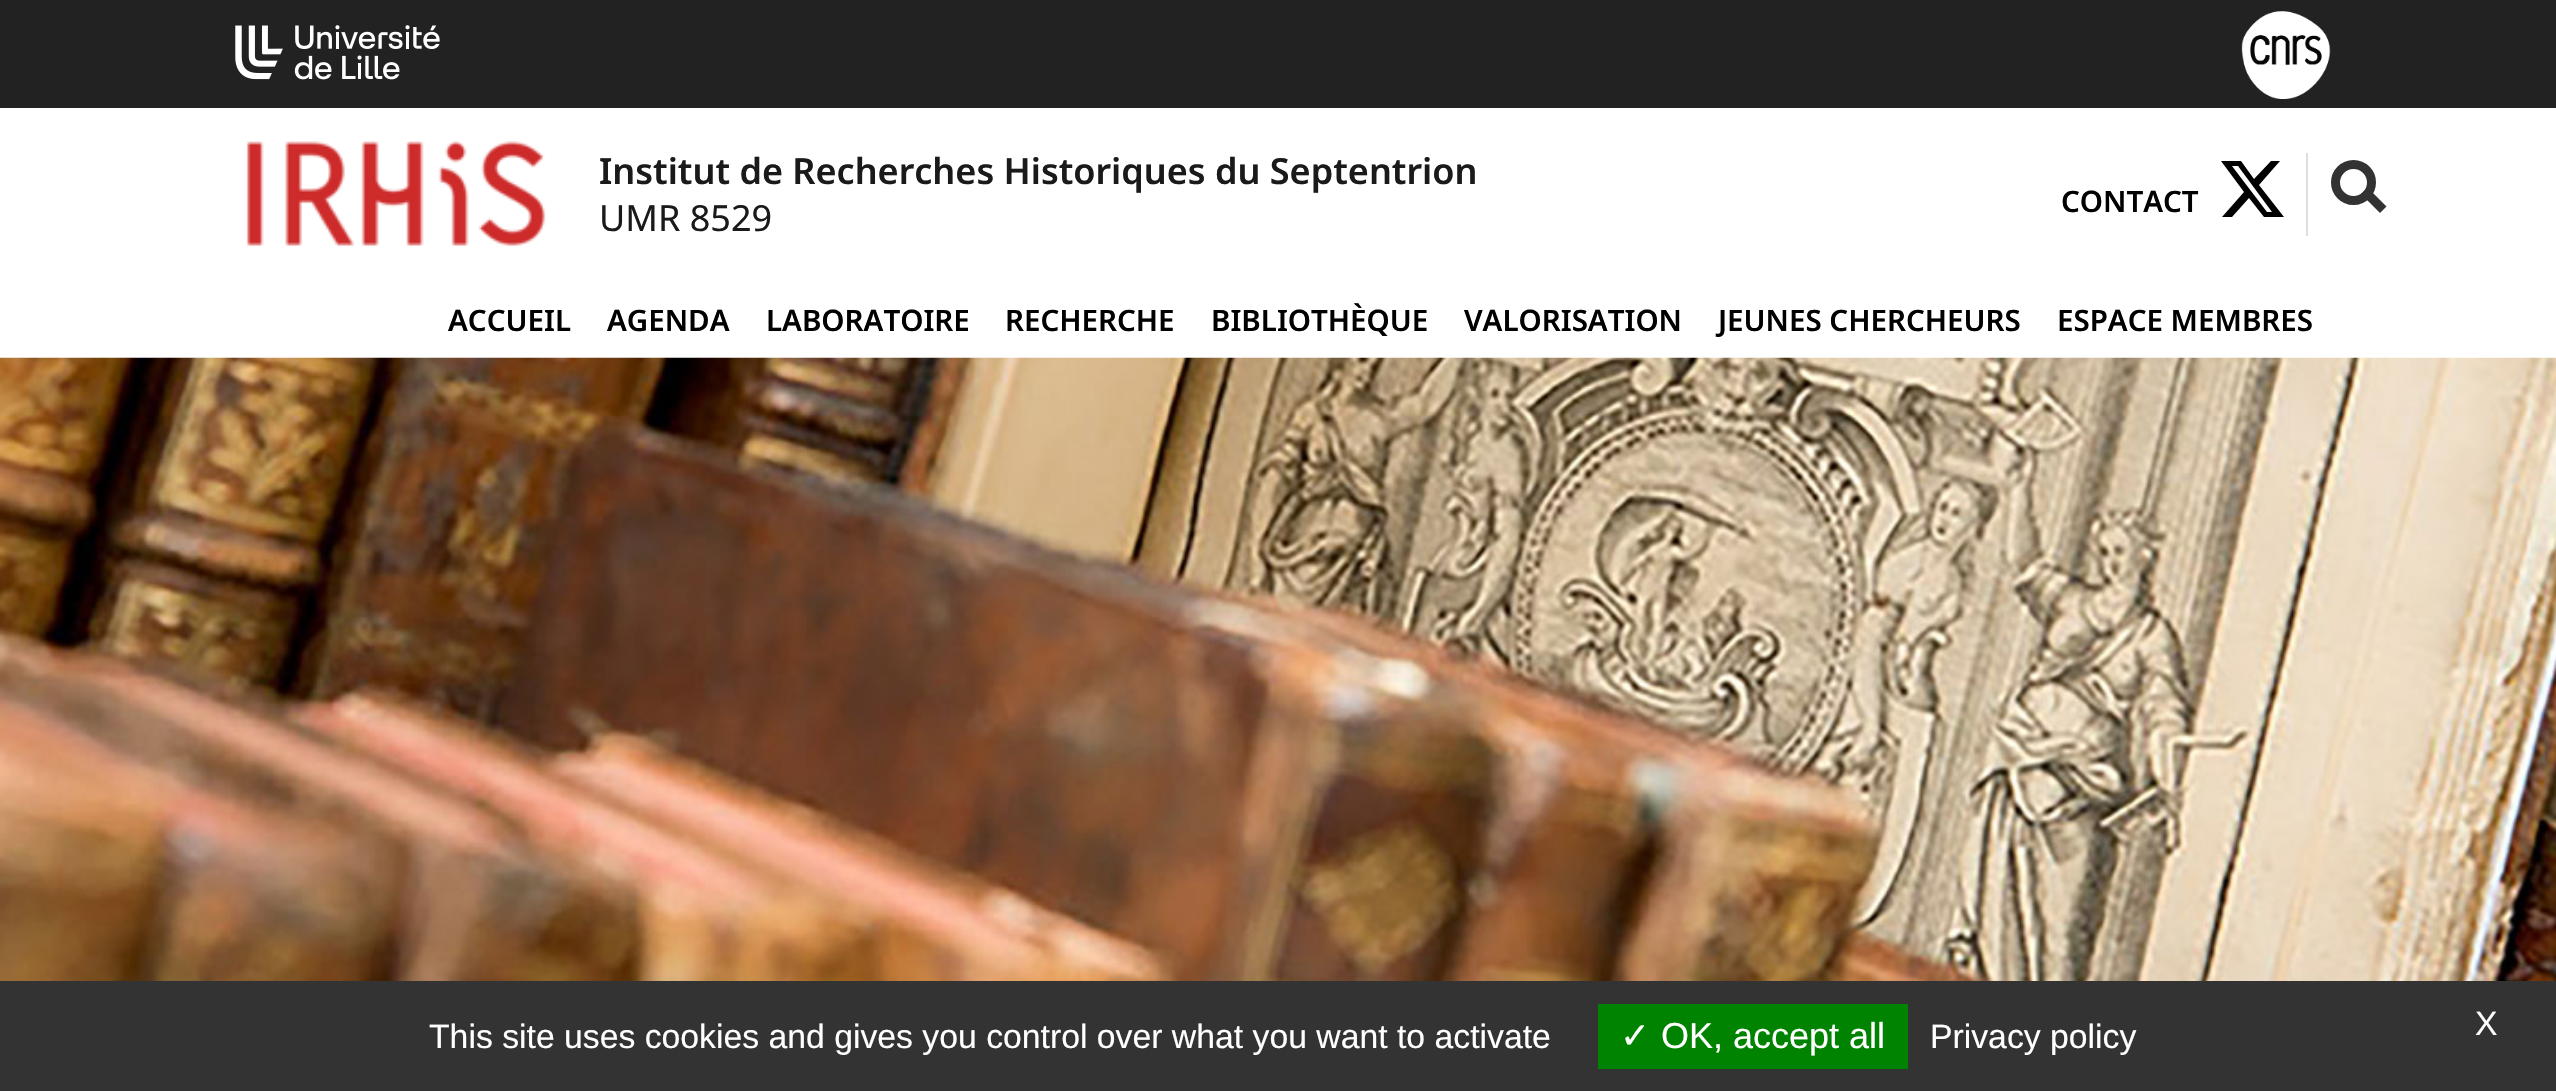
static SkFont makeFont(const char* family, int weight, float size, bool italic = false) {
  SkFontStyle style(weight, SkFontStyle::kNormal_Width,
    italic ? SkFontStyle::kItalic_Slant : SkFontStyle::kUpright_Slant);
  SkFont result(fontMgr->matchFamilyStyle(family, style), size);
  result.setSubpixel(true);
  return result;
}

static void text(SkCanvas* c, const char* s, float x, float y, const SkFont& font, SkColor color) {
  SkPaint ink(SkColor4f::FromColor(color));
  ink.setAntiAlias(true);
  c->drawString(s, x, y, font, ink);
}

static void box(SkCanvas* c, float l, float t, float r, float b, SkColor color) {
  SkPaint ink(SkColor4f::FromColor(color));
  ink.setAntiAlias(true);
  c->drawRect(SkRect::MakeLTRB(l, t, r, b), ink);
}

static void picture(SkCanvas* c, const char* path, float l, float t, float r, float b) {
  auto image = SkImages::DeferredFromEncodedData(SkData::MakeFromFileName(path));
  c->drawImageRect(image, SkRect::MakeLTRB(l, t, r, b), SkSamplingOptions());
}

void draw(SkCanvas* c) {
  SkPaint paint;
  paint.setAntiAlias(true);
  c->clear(0xffffffff);
  box(c, 0, 0, 2556, 108, 0xff222222);
  picture(c, "img_01.png", 235, 25, 440, 80);
  picture(c, "img_02.png", 2241, 11, 2331, 99);
  picture(c, "img_03.png", 245, 141, 546, 246);
  SkFont face1 = makeFont("Noto Sans", 600, 36);
  text(c, "Institut de Recherches Historiques du Septentrion", 599, 184, face1, 0xff1a1a1a);
  SkFont face2 = makeFont("Noto Sans", 400, 36);
  text(c, "UMR 8529", 599, 231, face2, 0xff1a1a1a);
  SkFont face3 = makeFont("Noto Sans", 600, 29.5f);
  text(c, "CONTACT", 2061, 212, face3, 0xff000000);
  paint.setColor(0xff000000);
  c->drawPath(SkPathBuilder().moveTo(2271, 161).lineTo(2280, 161).lineTo(2259, 185).lineTo(2284, 217).lineTo(2264, 217).lineTo(2249, 198).lineTo(2232, 217).lineTo(2222, 217).lineTo(2244, 192).lineTo(2221, 161).lineTo(2241, 161).lineTo(2254, 179).close().moveTo(2267, 212).lineTo(2272, 212).lineTo(2238, 166).lineTo(2232, 166).close().detach(), paint);
  box(c, 2306, 153, 2308, 236, 0xffdedede);
  paint.setStyle(SkPaint::kStroke_Style);
  paint.setStrokeWidth(9);
  paint.setColor(0xff333333);
  c->drawCircle(2353.5f, 182.5f, 18, paint);
  paint.setStyle(SkPaint::kFill_Style);
  c->drawPath(SkPathBuilder().moveTo(2367.5f, 187.5f).lineTo(2386.5f, 206.5f).lineTo(2380, 213).lineTo(2361, 194).close().detach(), paint);
  text(c, "ACCUEIL", 448, 331, face3, 0xff000000);
  text(c, "AGENDA", 607, 331, face3, 0xff000000);
  text(c, "LABORATOIRE", 766, 331, face3, 0xff000000);
  text(c, "RECHERCHE", 1005, 331, face3, 0xff000000);
  text(c, "BIBLIOTHÈQUE", 1211, 331, face3, 0xff000000);
  text(c, "VALORISATION", 1464, 331, face3, 0xff000000);
  text(c, "JEUNES CHERCHEURS", 1718, 331, face3, 0xff000000);
  text(c, "ESPACE MEMBRES", 2057, 331, face3, 0xff000000);
  picture(c, "img_04.png", 0, 357, 2556, 981);
  box(c, 0, 981, 2556, 1091, 0xff333333);
  SkFont face4 = makeFont("Liberation Sans", 400, 33.75f);
  text(c, "This site uses cookies and gives you control over what you want to activate", 429, 1048, face4, 0xffffffff);
  box(c, 1598, 1004, 1908, 1069, 0xff008300);
  SkFont face5 = makeFont("DejaVu Sans", 400, 36);
  text(c, "✓", 1620, 1048, face5, 0xffffffff);
  SkFont face6 = makeFont("Liberation Sans", 400, 36);
  text(c, "OK, accept all", 1661, 1048, face6, 0xffffffff);
  text(c, "Privacy policy", 1930, 1048, face4, 0xffffffff);
  text(c, "X", 2475, 1035, face4, 0xffffffff);
}
